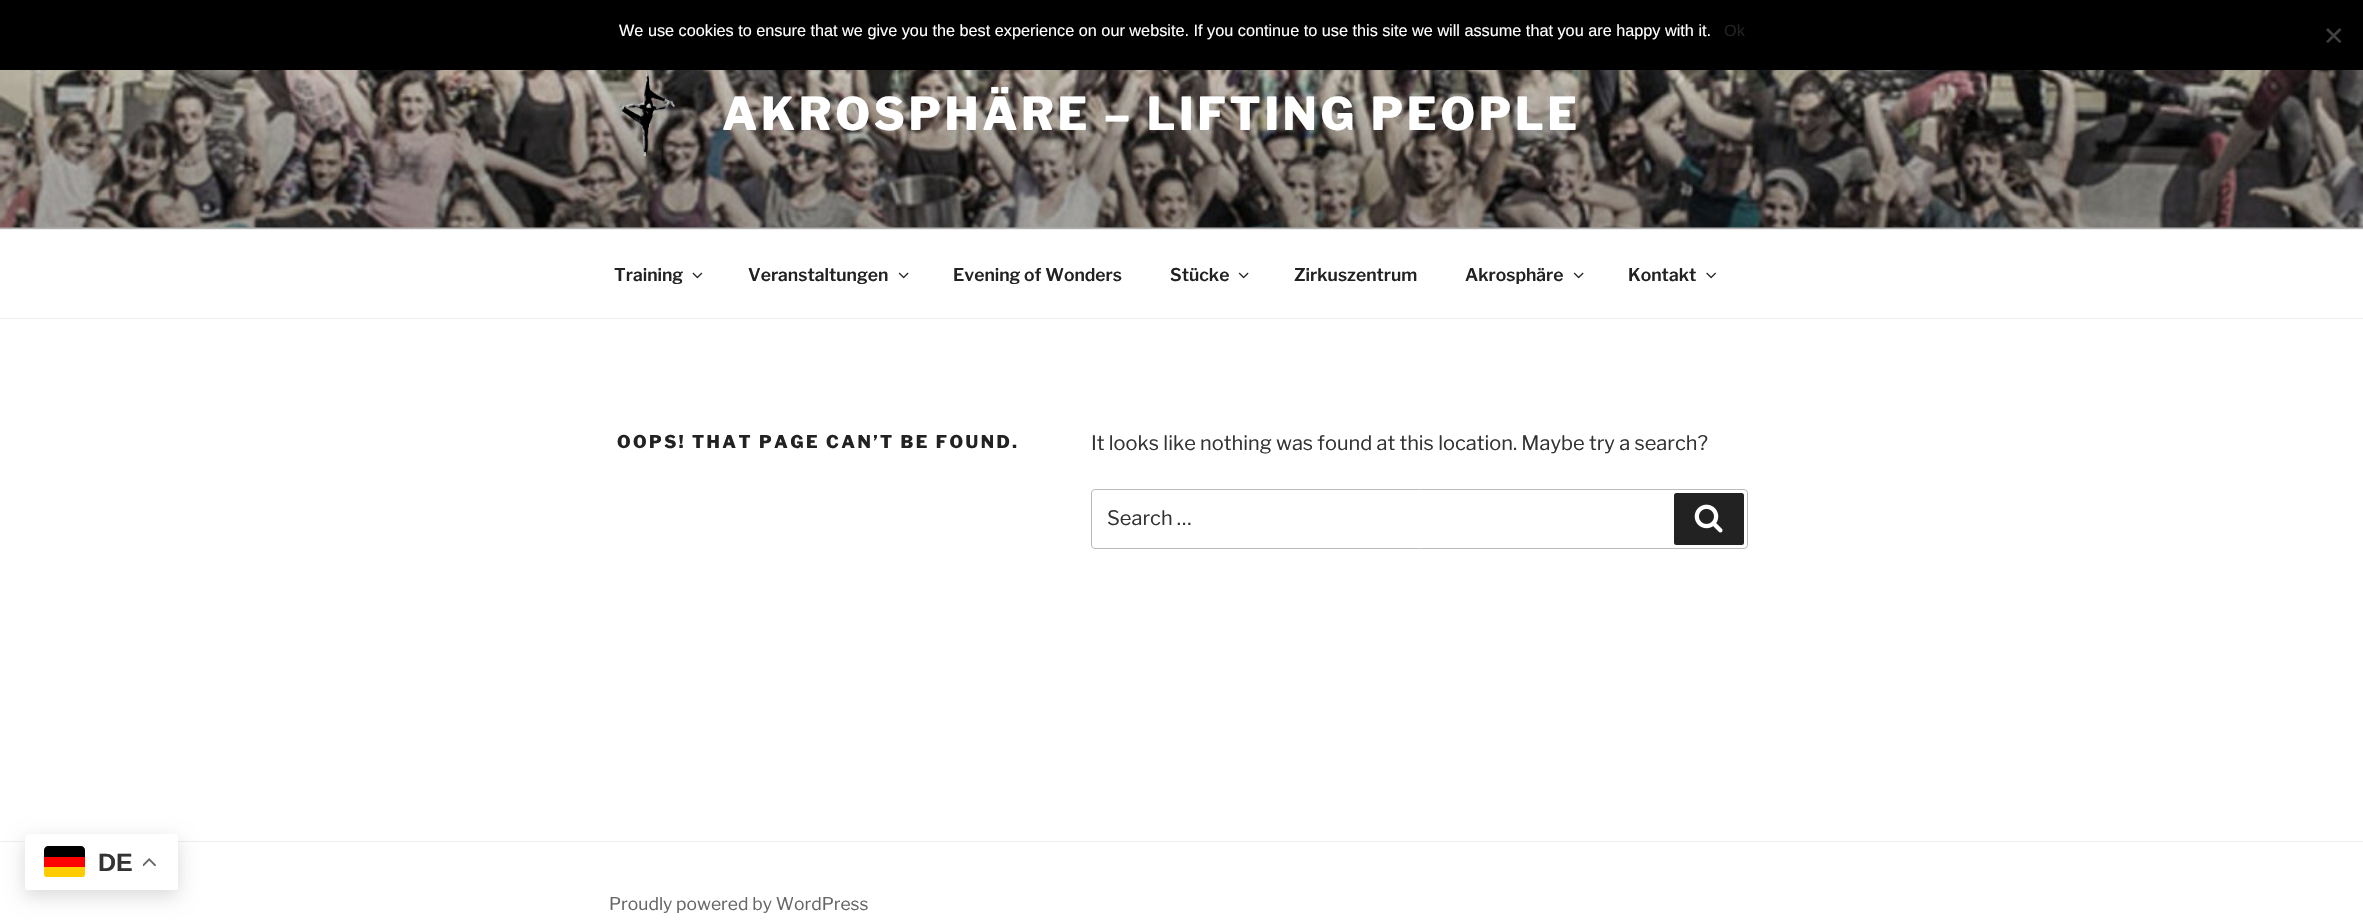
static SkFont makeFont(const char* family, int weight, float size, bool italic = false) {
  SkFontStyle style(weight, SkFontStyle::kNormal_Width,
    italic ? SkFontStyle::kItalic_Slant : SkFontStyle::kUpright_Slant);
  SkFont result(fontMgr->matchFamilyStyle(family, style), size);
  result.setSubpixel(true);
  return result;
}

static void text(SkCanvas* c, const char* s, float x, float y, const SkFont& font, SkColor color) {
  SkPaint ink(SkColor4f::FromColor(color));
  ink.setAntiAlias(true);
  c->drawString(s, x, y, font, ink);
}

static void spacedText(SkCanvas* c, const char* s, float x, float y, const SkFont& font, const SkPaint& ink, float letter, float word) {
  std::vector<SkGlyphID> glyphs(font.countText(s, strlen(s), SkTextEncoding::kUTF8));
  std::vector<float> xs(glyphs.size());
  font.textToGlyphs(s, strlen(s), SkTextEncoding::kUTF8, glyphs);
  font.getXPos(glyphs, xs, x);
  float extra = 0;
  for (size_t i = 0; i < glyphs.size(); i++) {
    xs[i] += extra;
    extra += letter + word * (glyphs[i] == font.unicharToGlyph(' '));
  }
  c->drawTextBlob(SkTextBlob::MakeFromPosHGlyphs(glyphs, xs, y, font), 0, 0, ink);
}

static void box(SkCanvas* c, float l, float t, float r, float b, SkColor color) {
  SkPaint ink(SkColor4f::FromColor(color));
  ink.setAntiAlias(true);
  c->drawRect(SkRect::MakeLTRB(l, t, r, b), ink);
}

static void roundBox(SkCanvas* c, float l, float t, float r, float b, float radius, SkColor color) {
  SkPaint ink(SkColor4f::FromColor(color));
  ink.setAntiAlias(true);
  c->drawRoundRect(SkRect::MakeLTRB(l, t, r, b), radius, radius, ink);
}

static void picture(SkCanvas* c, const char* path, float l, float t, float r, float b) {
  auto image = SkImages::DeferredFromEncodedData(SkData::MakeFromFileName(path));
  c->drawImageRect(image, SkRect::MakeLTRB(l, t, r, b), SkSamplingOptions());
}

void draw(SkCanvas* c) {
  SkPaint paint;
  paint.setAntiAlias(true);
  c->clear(0xffffffff);
  box(c, 0, 0, 2363, 70, 0xff000000);
  SkFont face1 = makeFont("Liberation Sans", 400, 16.25f);
  text(c, "We use cookies to ensure that we give you the best experience on our website. If you continue to use this site we will assume that you are happy with it.", 619, 36, face1, 0xffffffff);
  text(c, "Ok", 1724, 36, face1, 0xff222222);
  paint.setColor(0xff404040);
  c->drawPath(SkPathBuilder().moveTo(2339.5f, 28).lineTo(2341.5f, 30).lineTo(2328, 43).lineTo(2326, 41.5f).close().detach(), paint);
  c->drawPath(SkPathBuilder().moveTo(2326, 30).lineTo(2328, 28).lineTo(2341.5f, 41.5f).lineTo(2339.5f, 43).close().detach(), paint);
  box(c, 0, 841, 2363, 842, 0xffeeeeee);
  paint.setColor(0x26000000);
  paint.setMaskFilter(SkMaskFilter::MakeBlur(kNormal_SkBlurStyle, 9.5f));
  c->drawRoundRect(SkRect::MakeLTRB(25, 840, 178, 896), 2.5f, 2.5f, paint);
  paint.setMaskFilter(nullptr);
  roundBox(c, 25, 834, 178, 890, 2.5f, 0xffffffff);
  c->save();
  c->clipPath(SkPathBuilder().moveTo(48, 846).lineTo(81, 846).cubicTo(83, 846, 85, 848, 85, 850).lineTo(85, 874).cubicTo(85, 876, 83, 878, 81, 878).lineTo(48, 878).cubicTo(46, 878, 44, 876, 44, 874).lineTo(44, 850).cubicTo(44, 848, 46, 846, 48, 846).close().detach(), true);
  box(c, 44, 867, 85, 877, 0xffffcc00);
  c->restore();
  paint.setColor(0xff000000);
  c->drawPath(SkPathBuilder().moveTo(48, 846).lineTo(81, 846).cubicTo(83, 846, 85, 848, 85, 850).lineTo(85, 857).lineTo(44, 857).lineTo(44, 850).cubicTo(44, 848, 46, 846, 48, 846).close().detach(), paint);
  box(c, 44, 857, 85, 867, 0xffff0000);
  SkFont face2 = makeFont("Liberation Sans", 700, 25);
  text(c, "DE", 98, 871, face2, 0xff333333);
  picture(c, "img_01.png", 143, 858, 156, 867);
  box(c, 0, 227, 2363, 229, 0xfffafafa);
  picture(c, "img_02.png", 0, 70, 2363, 228);
  {
    const SkColor colors[] = {0x00000000, 0x4d000000, 0x4d000000};
    const float stops[] = {0, 0.75f, 1};
    const SkPoint ends[] = {{1182, 0}, {1182, 229}};
    paint.setShader(SkGradientShader::MakeLinear(ends, colors, stops, 3, SkTileMode::kClamp));
    paint.setAlpha(255);
  }
  c->drawRect(SkRect::MakeLTRB(0, 70, 2363, 229), paint);
  picture(c, "img_03.png", 619, 70, 675, 156);
  SkFont face3 = makeFont("Libre Franklin", 800, 45);
  paint.setShader(nullptr);
  paint.setColor(0xffffffff);
  spacedText(c, "AKROSPHÄRE – LIFTING PEOPLE", 722, 130, face3, paint, 3.6f, 0);
  box(c, 0, 229, 2363, 230, 0xffeeeeee);
  box(c, 0, 318, 2363, 319, 0xffeeeeee);
  SkFont face4 = makeFont("Libre Franklin", 600, 17.5f);
  text(c, "Training", 614, 281, face4, 0xff222222);
  picture(c, "img_04.png", 692, 272, 703, 279);
  text(c, "Veranstaltungen", 748, 281, face4, 0xff222222);
  picture(c, "img_05.png", 898, 272, 909, 279);
  text(c, "Evening of Wonders", 953, 281, face4, 0xff222222);
  text(c, "Stücke", 1170, 281, face4, 0xff222222);
  picture(c, "img_05.png", 1238, 272, 1249, 279);
  text(c, "Zirkuszentrum", 1294, 281, face4, 0xff222222);
  text(c, "Akrosphäre", 1465, 281, face4, 0xff222222);
  picture(c, "img_05.png", 1573, 272, 1584, 279);
  text(c, "Kontakt", 1628, 281, face4, 0xff222222);
  picture(c, "img_06.png", 1706, 272, 1716, 279);
  SkFont face5 = makeFont("Libre Franklin", 800, 17.5f);
  paint.setColor(0xff222222);
  spacedText(c, "OOPS! THAT PAGE CAN’T BE FOUND.", 617, 448, face5, paint, 2.45f, 0);
  SkFont face6 = makeFont("Libre Franklin", 400, 20);
  text(c, "It looks like nothing was found at this location. Maybe try a search?", 1091, 450, face6, 0xff333333);
  paint.setStyle(SkPaint::kStroke_Style);
  paint.setStrokeWidth(1);
  paint.setColor(0xffbbbbbb);
  c->drawRoundRect(SkRect::MakeLTRB(1091.5f, 489.5f, 1747.5f, 548.5f), 3.5f, 3.5f, paint);
  text(c, "Search …", 1107, 525, face6, 0xff333333);
  roundBox(c, 1674, 493, 1744, 545, 2.5f, 0xff222222);
  picture(c, "img_07.png", 1694, 504, 1723, 533);
  SkFont face7 = makeFont("Libre Franklin", 400, 17.5f);
  text(c, "Proudly powered by WordPress", 609, 910, face7, 0xff666666);
}
